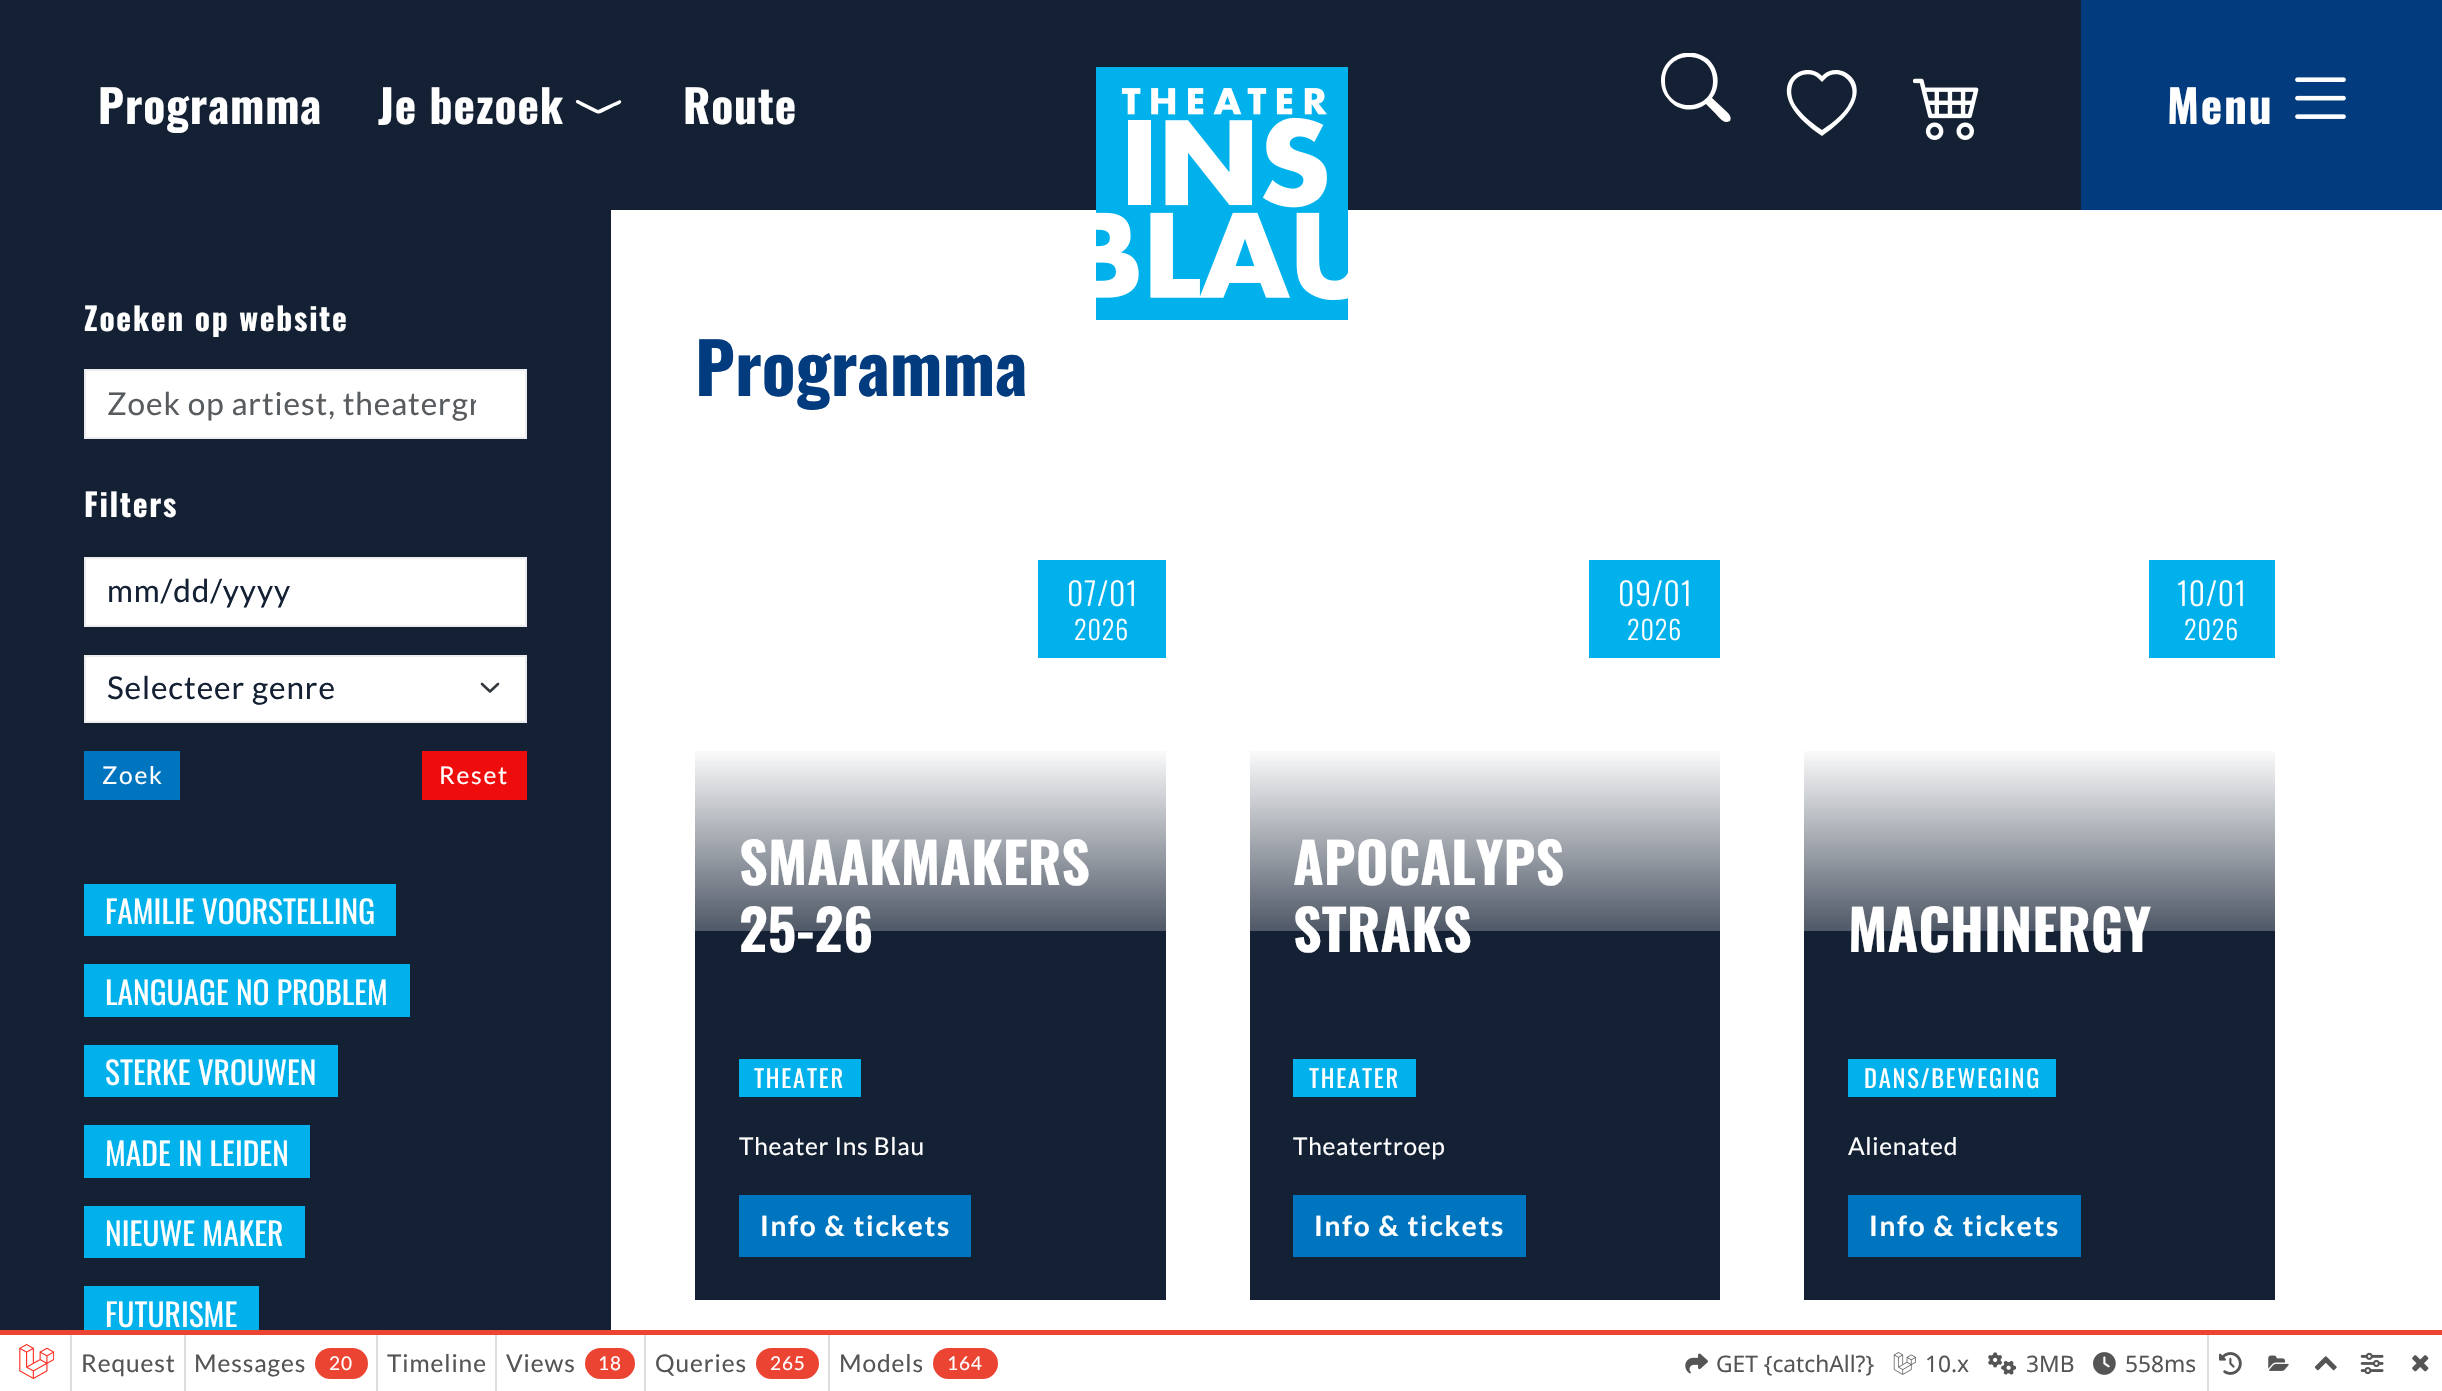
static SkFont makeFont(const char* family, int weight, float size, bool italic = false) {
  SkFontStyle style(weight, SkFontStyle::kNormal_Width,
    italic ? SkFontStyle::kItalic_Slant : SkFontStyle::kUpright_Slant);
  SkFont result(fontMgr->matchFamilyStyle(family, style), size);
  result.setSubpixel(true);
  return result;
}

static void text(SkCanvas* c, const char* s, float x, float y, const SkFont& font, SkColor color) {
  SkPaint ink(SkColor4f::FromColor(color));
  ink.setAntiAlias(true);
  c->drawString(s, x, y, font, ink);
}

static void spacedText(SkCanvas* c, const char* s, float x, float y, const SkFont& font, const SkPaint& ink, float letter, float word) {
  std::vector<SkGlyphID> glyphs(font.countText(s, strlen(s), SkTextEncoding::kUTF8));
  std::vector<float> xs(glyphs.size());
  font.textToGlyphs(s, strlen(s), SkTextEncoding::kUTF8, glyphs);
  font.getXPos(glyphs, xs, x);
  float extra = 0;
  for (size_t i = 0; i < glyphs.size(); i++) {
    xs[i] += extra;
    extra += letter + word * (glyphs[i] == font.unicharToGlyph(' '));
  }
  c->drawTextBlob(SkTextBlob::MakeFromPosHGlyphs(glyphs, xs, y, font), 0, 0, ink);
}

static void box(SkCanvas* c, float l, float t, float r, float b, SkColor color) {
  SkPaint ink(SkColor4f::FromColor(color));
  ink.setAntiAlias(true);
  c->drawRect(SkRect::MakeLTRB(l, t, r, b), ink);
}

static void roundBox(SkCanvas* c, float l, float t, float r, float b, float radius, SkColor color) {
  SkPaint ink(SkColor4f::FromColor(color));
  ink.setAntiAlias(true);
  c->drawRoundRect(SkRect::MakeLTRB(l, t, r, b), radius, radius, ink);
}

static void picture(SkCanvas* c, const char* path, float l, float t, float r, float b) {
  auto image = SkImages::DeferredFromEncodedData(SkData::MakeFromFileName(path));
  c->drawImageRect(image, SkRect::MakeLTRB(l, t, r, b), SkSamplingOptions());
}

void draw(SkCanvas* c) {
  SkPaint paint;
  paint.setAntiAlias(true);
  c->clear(0xffffffff);
  box(c, 0, 0, 2081, 210, 0xff142033);
  picture(c, "img_01.png", 1096, 67, 1348, 320);
  SkFont face1 = makeFont("Oswald", 700, 45.5f);
  paint.setColor(0xffffffff);
  spacedText(c, "Programma", 98, 124, face1, paint, 0.9f, 0);
  spacedText(c, "Je bezoek", 378, 124, face1, paint, 0.9f, 0);
  c->drawPath(SkPathBuilder(SkPathFillType::kEvenOdd).moveTo(576, 101).cubicTo(576, 100, 577, 100, 578, 100).lineTo(598, 110).lineTo(620, 100).lineTo(621, 101).cubicTo(623, 104, 614, 106, 613, 107).lineTo(603, 112).cubicTo(598, 114, 599, 114, 594, 112).lineTo(580, 105).cubicTo(579, 104, 575, 103, 576, 101).detach(), paint);
  spacedText(c, "Route", 683, 124, face1, paint, 0.9f, 0);
  c->save();
  c->clipRect(SkRect::MakeLTRB(1661, 53, 1731, 123));
  c->drawPath(SkPathBuilder().moveTo(1712, 98).cubicTo(1721, 86, 1719, 69, 1708, 59).cubicTo(1696, 50, 1680, 50, 1669, 61).cubicTo(1659, 71, 1658, 88, 1668, 99).cubicTo(1677, 111, 1694, 113, 1706, 104).lineTo(1715, 113).cubicTo(1717, 115, 1723, 123, 1727, 122).lineTo(1730, 121).cubicTo(1732, 117, 1729, 114, 1727, 112).close().moveTo(1713, 81).cubicTo(1713, 113, 1665, 113, 1665, 81).cubicTo(1665, 49, 1713, 49, 1713, 81).detach(), paint);
  c->restore();
  c->drawPath(SkPathBuilder().moveTo(1822, 82).lineTo(1819, 79).cubicTo(1811, 71, 1798, 74, 1793, 83).cubicTo(1791, 88, 1790, 94, 1794, 103).cubicTo(1798, 110, 1807, 120, 1822, 130).cubicTo(1834, 122, 1848, 111, 1852, 97).cubicTo(1856, 80, 1837, 67, 1825, 79).close().moveTo(1822, 136).cubicTo(1755, 91, 1801, 57, 1821, 75).lineTo(1822, 76).lineTo(1823, 75).cubicTo(1842, 57, 1889, 91, 1822, 136).detach(), paint);
  picture(c, "img_02.png", 1913, 78, 1979, 140);
  box(c, 2081, 0, 2442, 210, 0xff023b7e);
  spacedText(c, "Menu", 2167, 124, face1, paint, 1.75f, 0);
  picture(c, "img_03.png", 2295, 77, 2346, 119);
  box(c, 0, 210, 611, 1330, 0xff142033);
  SkFont face2 = makeFont("Oswald", 700, 31.5f);
  spacedText(c, "Zoeken op website", 84, 331, face2, paint, 1.75f, 0);
  c->drawRect(SkRect::MakeLTRB(85, 370, 526, 438), paint);
  paint.setStyle(SkPaint::kStroke_Style);
  paint.setStrokeWidth(2);
  paint.setColor(0xffececee);
  c->drawRect(SkRect::MakeLTRB(85, 370, 526, 438), paint);
  c->save();
  c->clipRect(SkRect::MakeLTRB(107, 383, 476, 422));
  SkFont face3 = makeFont("Lato", 400, 31.5f);
  paint.setStyle(SkPaint::kFill_Style);
  paint.setColor(0xff595c5f);
  spacedText(c, "Zoek op artiest, theatergr", 107, 415, face3, paint, 0.9f, 0);
  c->restore();
  paint.setColor(0xffffffff);
  spacedText(c, "Filters", 84, 517, face2, paint, 1.75f, 0);
  c->drawRect(SkRect::MakeLTRB(85, 558, 526, 626), paint);
  paint.setStyle(SkPaint::kStroke_Style);
  paint.setColor(0xffececee);
  c->drawRect(SkRect::MakeLTRB(85, 558, 526, 626), paint);
  paint.setStyle(SkPaint::kFill_Style);
  paint.setColor(0xff142033);
  spacedText(c, "mm/dd/yyyy", 107, 602, face3, paint, 0.9f, 0);
  box(c, 86, 657, 525, 721, 0xffffffff);
  paint.setStyle(SkPaint::kStroke_Style);
  paint.setStrokeWidth(2.6f);
  paint.setStrokeCap(SkPaint::kRound_Cap);
  paint.setStrokeJoin(SkPaint::kRound_Join);
  paint.setColor(0xff343a40);
  c->drawPath(SkPathBuilder().moveTo(482, 684).lineTo(490, 691.5f).lineTo(498, 684).detach(), paint);
  paint.setStrokeWidth(2);
  paint.setStrokeCap(SkPaint::kButt_Cap);
  paint.setStrokeJoin(SkPaint::kMiter_Join);
  paint.setColor(0xffececee);
  c->drawRect(SkRect::MakeLTRB(85, 656, 526, 722), paint);
  paint.setStyle(SkPaint::kFill_Style);
  paint.setColor(0xff142033);
  spacedText(c, "Selecteer genre", 107, 699, face3, paint, 0.9f, 0);
  box(c, 84, 751, 180, 800, 0xff0075bf);
  SkFont face4 = makeFont("Lato", 400, 24.5f);
  paint.setColor(0xffffffff);
  spacedText(c, "Zoek", 102, 784, face4, paint, 1.75f, 0);
  box(c, 422, 751, 527, 800, 0xffef0c0c);
  spacedText(c, "Reset", 439, 784, face4, paint, 1.75f, 0);
  box(c, 84, 884, 396, 936, 0xff00b1eb);
  SkFont face5 = makeFont("Oswald", 400, 31.5f);
  text(c, "FAMILIE VOORSTELLING", 105, 924, face5, 0xffffffff);
  box(c, 84, 964, 410, 1017, 0xff00b1eb);
  text(c, "LANGUAGE NO PROBLEM", 105, 1005, face5, 0xffffffff);
  box(c, 84, 1045, 338, 1097, 0xff00b1eb);
  text(c, "STERKE VROUWEN", 105, 1085, face5, 0xffffffff);
  box(c, 84, 1125, 310, 1178, 0xff00b1eb);
  text(c, "MADE IN LEIDEN", 105, 1166, face5, 0xffffffff);
  box(c, 84, 1206, 305, 1258, 0xff00b1eb);
  text(c, "NIEUWE MAKER", 105, 1246, face5, 0xffffffff);
  box(c, 84, 1286, 259, 1330, 0xff00b1eb);
  text(c, "FUTURISME", 105, 1327, face5, 0xffffffff);
  SkFont face6 = makeFont("Oswald", 700, 70);
  text(c, "Programma", 695, 396, face6, 0xff023b7e);
  box(c, 1038, 560, 1166, 658, 0xff00b1eb);
  SkFont face7 = makeFont("Oswald", 300, 31.5f);
  spacedText(c, "07/01", 1067, 606, face7, paint, 0.9f, 0);
  SkFont face8 = makeFont("Oswald", 300, 26);
  spacedText(c, "2026", 1074, 640, face8, paint, 0.9f, 0);
  {
    const SkColor colors[] = {0x00142033, 0xbf142033};
    const float stops[] = {0.5f, 1};
    const SkPoint ends[] = {{930, 560}, {930, 931}};
    paint.setShader(SkGradientShader::MakeLinear(ends, colors, stops, 2, SkTileMode::kClamp));
    paint.setAlpha(255);
  }
  c->drawRect(SkRect::MakeLTRB(695, 751, 1166, 931), paint);
  SkFont face9 = makeFont("Oswald", 700, 56);
  text(c, "SMAAKMAKERS", 739, 885, face9, 0xffffffff);
  box(c, 695, 931, 1166, 1300, 0xff142033);
  text(c, "25-26", 739, 952, face9, 0xffffffff);
  box(c, 739, 1059, 861, 1097, 0xff00b1eb);
  SkFont face10 = makeFont("Oswald", 400, 24.5f);
  paint.setShader(nullptr);
  paint.setColor(0xffffffff);
  spacedText(c, "THEATER", 754, 1088, face10, paint, 1.75f, 0);
  spacedText(c, "Theater Ins Blau", 739, 1155, face4, paint, 0.7f, 0);
  box(c, 739, 1195, 971, 1257, 0xff0075bf);
  SkFont face11 = makeFont("Lato", 700, 28);
  spacedText(c, "Info & tickets", 760, 1236, face11, paint, 1.75f, 0);
  box(c, 1589, 560, 1720, 658, 0xff00b1eb);
  spacedText(c, "09/01", 1618, 606, face7, paint, 0.9f, 0);
  spacedText(c, "2026", 1627, 640, face8, paint, 0.9f, 0);
  {
    const SkColor colors[] = {0x00142033, 0xbf142033};
    const float stops[] = {0.5f, 1};
    const SkPoint ends[] = {{1485, 560}, {1485, 931}};
    paint.setShader(SkGradientShader::MakeLinear(ends, colors, stops, 2, SkTileMode::kClamp));
    paint.setAlpha(255);
  }
  c->drawRect(SkRect::MakeLTRB(1250, 751, 1720, 931), paint);
  text(c, "APOCALYPS", 1293, 885, face9, 0xffffffff);
  box(c, 1250, 931, 1720, 1300, 0xff142033);
  text(c, "STRAKS", 1293, 952, face9, 0xffffffff);
  box(c, 1293, 1059, 1416, 1097, 0xff00b1eb);
  paint.setShader(nullptr);
  paint.setColor(0xffffffff);
  spacedText(c, "THEATER", 1309, 1088, face10, paint, 1.75f, 0);
  spacedText(c, "Theatertroep", 1293, 1155, face4, paint, 0.7f, 0);
  box(c, 1293, 1195, 1526, 1257, 0xff0075bf);
  spacedText(c, "Info & tickets", 1314, 1236, face11, paint, 1.75f, 0);
  box(c, 2149, 560, 2275, 658, 0xff00b1eb);
  spacedText(c, "10/01", 2177, 606, face7, paint, 0.9f, 0);
  spacedText(c, "2026", 2184, 640, face8, paint, 0.9f, 0);
  {
    const SkColor colors[] = {0x00142033, 0xbf142033};
    const float stops[] = {0.5f, 1};
    const SkPoint ends[] = {{2040, 560}, {2040, 931}};
    paint.setShader(SkGradientShader::MakeLinear(ends, colors, stops, 2, SkTileMode::kClamp));
    paint.setAlpha(255);
  }
  c->drawRect(SkRect::MakeLTRB(1804, 751, 2275, 931), paint);
  box(c, 1804, 931, 2275, 1300, 0xff142033);
  text(c, "MACHINERGY", 1848, 952, face9, 0xffffffff);
  box(c, 1848, 1059, 2056, 1097, 0xff00b1eb);
  paint.setShader(nullptr);
  paint.setColor(0xffffffff);
  spacedText(c, "DANS/BEWEGING", 1864, 1088, face10, paint, 1.75f, 0);
  spacedText(c, "Alienated", 1848, 1155, face4, paint, 0.7f, 0);
  box(c, 1848, 1195, 2081, 1257, 0xff0075bf);
  spacedText(c, "Info & tickets", 1869, 1236, face11, paint, 1.75f, 0);
  box(c, 0, 1330, 2442, 1335, 0xffeb4432);
  picture(c, "img_04.png", 19, 1344, 54, 1379);
  box(c, 70, 1335, 72, 1391, 0xffdddddd);
  paint.setColor(0xff555555);
  spacedText(c, "Request", 81, 1372, face4, paint, 0.9f, 0);
  box(c, 184, 1335, 186, 1391, 0xffdddddd);
  spacedText(c, "Messages", 194, 1372, face4, paint, 0.9f, 0);
  roundBox(c, 315, 1348, 368, 1379, 15.5f, 0xffeb4432);
  SkFont face12 = makeFont("Lato", 400, 19);
  paint.setColor(0xffffffff);
  spacedText(c, "20", 329, 1370, face12, paint, 0.9f, 0);
  box(c, 376, 1335, 378, 1391, 0xffdddddd);
  paint.setColor(0xff555555);
  spacedText(c, "Timeline", 387, 1372, face4, paint, 0.9f, 0);
  box(c, 495, 1335, 497, 1391, 0xffdddddd);
  spacedText(c, "Views", 506, 1372, face4, paint, 0.9f, 0);
  roundBox(c, 585, 1348, 635, 1379, 15.5f, 0xffeb4432);
  paint.setColor(0xffffffff);
  spacedText(c, "18", 598, 1370, face12, paint, 0.9f, 0);
  box(c, 644, 1335, 646, 1391, 0xffdddddd);
  paint.setColor(0xff555555);
  spacedText(c, "Queries", 655, 1372, face4, paint, 0.9f, 0);
  roundBox(c, 756, 1348, 819, 1379, 15.5f, 0xffeb4432);
  paint.setColor(0xffffffff);
  spacedText(c, "265", 770, 1370, face12, paint, 0.9f, 0);
  box(c, 828, 1335, 830, 1391, 0xffdddddd);
  paint.setColor(0xff555555);
  spacedText(c, "Models", 839, 1372, face4, paint, 0.9f, 0);
  roundBox(c, 933, 1348, 998, 1379, 15.5f, 0xffeb4432);
  paint.setColor(0xffffffff);
  spacedText(c, "164", 947, 1370, face12, paint, 0.9f, 0);
  picture(c, "img_05.png", 1685, 1353, 1708, 1374);
  SkFont face13 = makeFont("Noto Sans", 400, 22.75f);
  text(c, "GET {catchAll?}", 1716, 1372, face13, 0xff555555);
  picture(c, "img_06.png", 1893, 1352, 1916, 1375);
  text(c, "10.x", 1925, 1372, face13, 0xff555555);
  picture(c, "img_07.png", 1988, 1352, 2017, 1375);
  text(c, "3MB", 2026, 1372, face13, 0xff555555);
  picture(c, "img_08.png", 2093, 1352, 2116, 1375);
  text(c, "558ms", 2125, 1372, face13, 0xff555555);
  box(c, 2207, 1335, 2209, 1391, 0xffdddddd);
  picture(c, "img_09.png", 2219, 1352, 2242, 1375);
  picture(c, "img_10.png", 2268, 1355, 2289, 1371);
  picture(c, "img_11.png", 2314, 1356, 2337, 1371);
  picture(c, "img_12.png", 2360, 1352, 2384, 1375);
  picture(c, "img_13.png", 2412, 1355, 2429, 1372);
}
